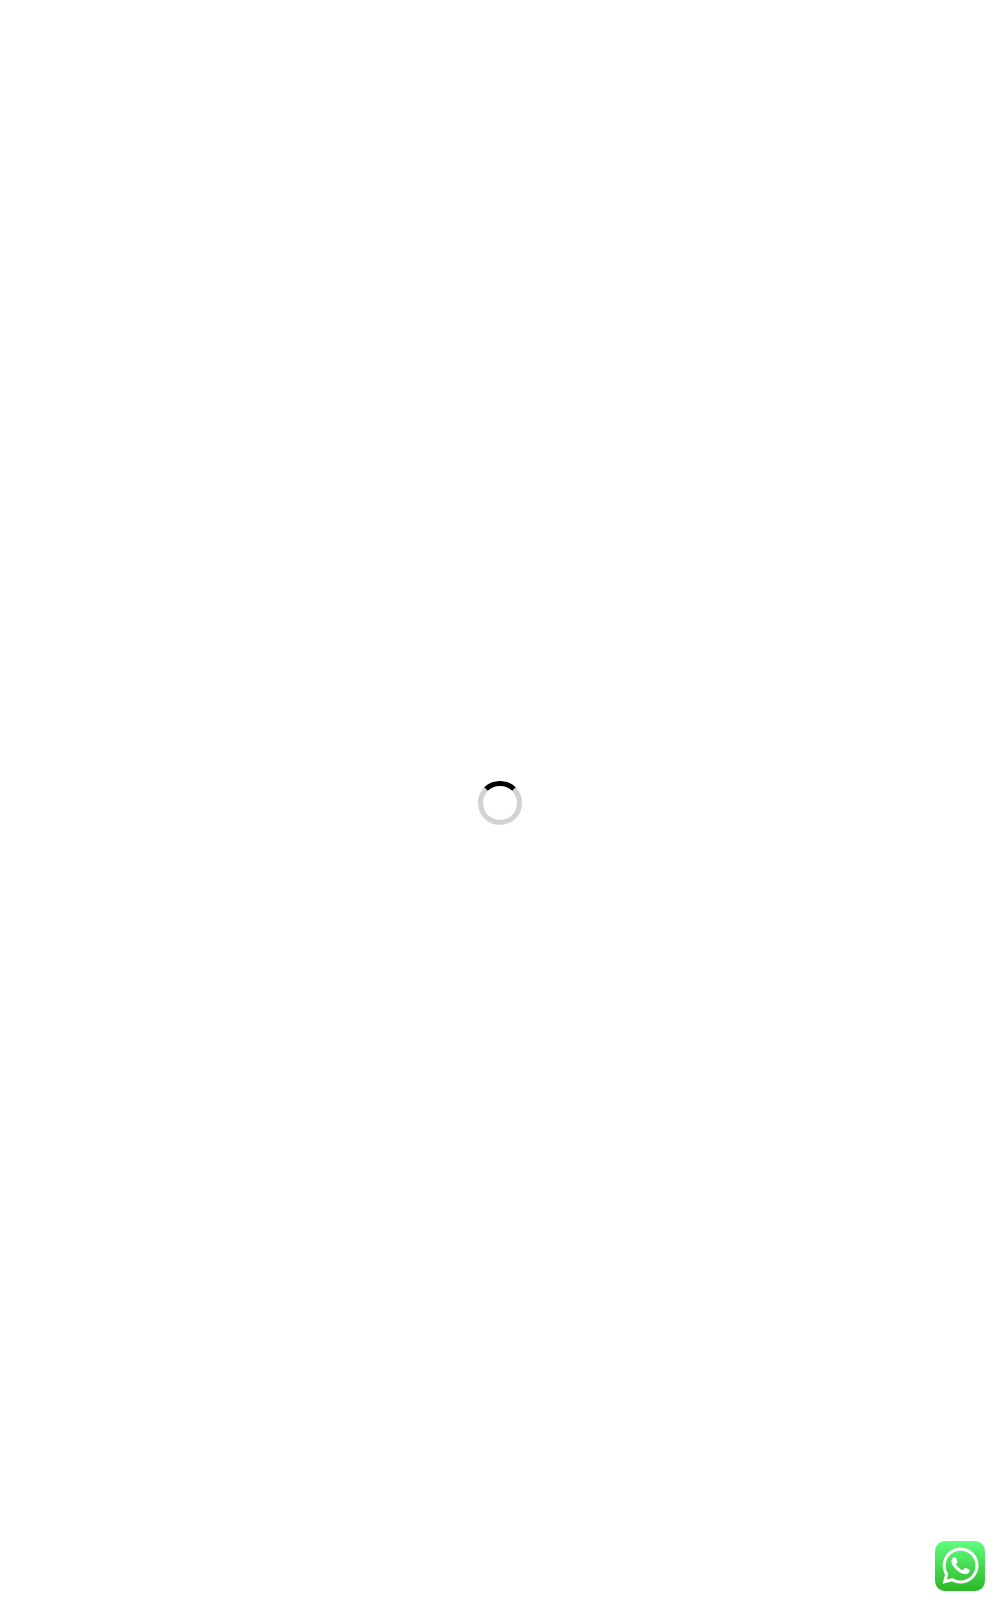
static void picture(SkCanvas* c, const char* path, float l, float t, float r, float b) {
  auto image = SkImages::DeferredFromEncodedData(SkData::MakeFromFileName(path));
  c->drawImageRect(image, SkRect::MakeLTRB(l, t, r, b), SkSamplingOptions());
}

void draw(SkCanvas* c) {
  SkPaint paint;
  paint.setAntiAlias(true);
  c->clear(0xffffffff);
  paint.setStyle(SkPaint::kStroke_Style);
  paint.setStrokeWidth(5);
  paint.setColor(0xff000000);
  c->drawPath(SkPathBuilder().moveTo(486, 789).cubicTo(493.5f, 781.5f, 506.5f, 781.5f, 514, 789).detach(), paint);
  paint.setColor(0x331d1d1d);
  c->drawPath(SkPathBuilder().moveTo(514, 789).cubicTo(517.5f, 793, 519.5f, 798, 519.5f, 803).cubicTo(519.5f, 826.5f, 485.5f, 829.5f, 481, 807).cubicTo(479.5f, 800.5f, 481.5f, 794, 486, 789).detach(), paint);
  picture(c, "img_01.png", 935, 1541, 985, 1591);
}
